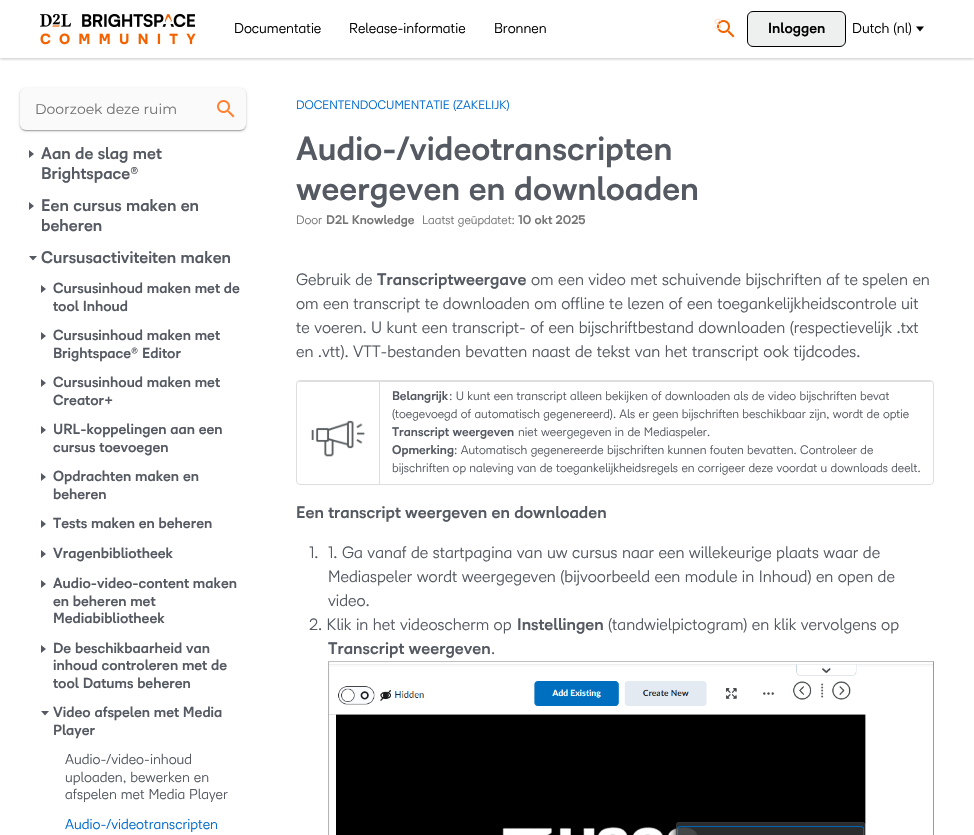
static SkFont makeFont(const char* family, int weight, float size, bool italic = false) {
  SkFontStyle style(weight, SkFontStyle::kNormal_Width,
    italic ? SkFontStyle::kItalic_Slant : SkFontStyle::kUpright_Slant);
  SkFont result(fontMgr->matchFamilyStyle(family, style), size);
  result.setSubpixel(true);
  return result;
}

static void text(SkCanvas* c, const char* s, float x, float y, const SkFont& font, SkColor color) {
  SkPaint ink(SkColor4f::FromColor(color));
  ink.setAntiAlias(true);
  c->drawString(s, x, y, font, ink);
}

static void box(SkCanvas* c, float l, float t, float r, float b, SkColor color) {
  SkPaint ink(SkColor4f::FromColor(color));
  ink.setAntiAlias(true);
  c->drawRect(SkRect::MakeLTRB(l, t, r, b), ink);
}

static void roundBox(SkCanvas* c, float l, float t, float r, float b, float radius, SkColor color) {
  SkPaint ink(SkColor4f::FromColor(color));
  ink.setAntiAlias(true);
  c->drawRoundRect(SkRect::MakeLTRB(l, t, r, b), radius, radius, ink);
}

static void picture(SkCanvas* c, const char* path, float l, float t, float r, float b) {
  auto image = SkImages::DeferredFromEncodedData(SkData::MakeFromFileName(path));
  c->drawImageRect(image, SkRect::MakeLTRB(l, t, r, b), SkSamplingOptions());
}

void draw(SkCanvas* c) {
  SkPaint paint;
  paint.setAntiAlias(true);
  c->clear(0xffffffff);
  c->save();
  c->clipRect(SkRect::MakeLTRB(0, 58, 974, 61));
  paint.setColor(0x38000000);
  paint.setMaskFilter(SkMaskFilter::MakeBlur(kNormal_SkBlurStyle, 1.5f));
  c->drawRect(SkRect::MakeLTRB(0, 1, 974, 59), paint);
  paint.setMaskFilter(nullptr);
  c->restore();
  picture(c, "img_01.png", 40, 13, 196, 45);
  SkFont face1 = makeFont("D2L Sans", 400, 14);
  text(c, "Documentatie", 234, 33, face1, 0xff000000);
  text(c, "Release-informatie", 349, 33, face1, 0xff000000);
  text(c, "Bronnen", 494, 33, face1, 0xff000000);
  picture(c, "img_02.png", 717, 20, 735, 38);
  text(c, "S", 714, 29, face1, 0xfffde1cd);
  paint.setColor(0xffeeefef);
  c->drawRoundRect(SkRect::MakeLTRB(747.5f, 11.5f, 845.5f, 46.5f), 5.5f, 5.5f, paint);
  paint.setStyle(SkPaint::kStroke_Style);
  paint.setStrokeWidth(1);
  paint.setColor(0xff000000);
  c->drawRoundRect(SkRect::MakeLTRB(747.5f, 11.5f, 845.5f, 46.5f), 5.5f, 5.5f, paint);
  SkFont face2 = makeFont("D2L Sans", 700, 14);
  text(c, "Inloggen", 768, 33, face2, 0xff000000);
  text(c, "Dutch (nl)", 852, 33, face1, 0xff000000);
  paint.setStyle(SkPaint::kFill_Style);
  c->drawPath(SkPathBuilder().moveTo(916, 26.5f).lineTo(924, 26.5f).lineTo(920, 31.5f).close().detach(), paint);
  SkFont face3 = makeFont("D2L Sans", 400, 12);
  text(c, "DOCENTENDOCUMENTATIE (ZAKELIJK)", 296, 109, face3, 0xff006bce);
  paint.setColor(0x1f000000);
  paint.setMaskFilter(SkMaskFilter::MakeBlur(kNormal_SkBlurStyle, 0.5f));
  c->drawRoundRect(SkRect::MakeLTRB(21, 91, 245, 131), 5, 5, paint);
  paint.setMaskFilter(nullptr);
  paint.setColor(0x24000000);
  paint.setMaskFilter(SkMaskFilter::MakeBlur(kNormal_SkBlurStyle, 0.5f));
  c->drawRoundRect(SkRect::MakeLTRB(20, 89, 246, 131), 6, 6, paint);
  paint.setMaskFilter(nullptr);
  paint.setColor(0x33000000);
  paint.setMaskFilter(SkMaskFilter::MakeBlur(kNormal_SkBlurStyle, 1.5f));
  c->drawRoundRect(SkRect::MakeLTRB(20, 89, 246, 131), 6, 6, paint);
  paint.setMaskFilter(nullptr);
  roundBox(c, 20, 88, 246, 130, 6, 0xfffafafa);
  SkFont face4 = makeFont("Montserrat", 400, 14);
  text(c, "Doorzoek deze ruim", 35, 114, face4, 0xff757575);
  picture(c, "img_03.png", 217, 100, 235, 118);
  paint.setColor(0xff555a62);
  c->drawPath(SkPathBuilder().moveTo(29, 158).lineTo(29, 150).lineTo(34, 154).close().detach(), paint);
  SkFont face5 = makeFont("D2L Sans", 700, 16);
  text(c, "Aan de slag met", 41, 159, face5, 0xff555a62);
  text(c, "Brightspace®", 41, 179, face5, 0xff555a62);
  c->drawPath(SkPathBuilder().moveTo(29, 210).lineTo(29, 202).lineTo(34, 206).close().detach(), paint);
  text(c, "Een cursus maken en", 41, 211, face5, 0xff555a62);
  text(c, "beheren", 41, 231, face5, 0xff555a62);
  c->drawPath(SkPathBuilder().moveTo(29, 256).lineTo(37, 256).lineTo(33, 260.5f).close().detach(), paint);
  text(c, "Cursusactiviteiten maken", 41, 263, face5, 0xff555a62);
  c->drawPath(SkPathBuilder().moveTo(41, 293).lineTo(41, 285).lineTo(46, 289).close().detach(), paint);
  text(c, "Cursusinhoud maken met de", 53, 293, face2, 0xff555a62);
  text(c, "tool Inhoud", 53, 311, face2, 0xff555a62);
  c->drawPath(SkPathBuilder().moveTo(41, 340).lineTo(41, 332).lineTo(46, 336).close().detach(), paint);
  text(c, "Cursusinhoud maken met", 53, 340, face2, 0xff555a62);
  text(c, "Brightspace® Editor", 53, 358, face2, 0xff555a62);
  c->drawPath(SkPathBuilder().moveTo(41, 387).lineTo(41, 379).lineTo(46, 383).close().detach(), paint);
  text(c, "Cursusinhoud maken met", 53, 387, face2, 0xff555a62);
  text(c, "Creator+", 53, 405, face2, 0xff555a62);
  c->drawPath(SkPathBuilder().moveTo(41, 434).lineTo(41, 426).lineTo(46, 430).close().detach(), paint);
  text(c, "URL-koppelingen aan een", 53, 434, face2, 0xff555a62);
  text(c, "cursus toevoegen", 53, 452, face2, 0xff555a62);
  c->drawPath(SkPathBuilder().moveTo(41, 481).lineTo(41, 473).lineTo(46, 477).close().detach(), paint);
  text(c, "Opdrachten maken en", 53, 481, face2, 0xff555a62);
  text(c, "beheren", 53, 499, face2, 0xff555a62);
  c->drawPath(SkPathBuilder().moveTo(41, 528).lineTo(41, 520).lineTo(46, 524).close().detach(), paint);
  c->save();
  c->clipRect(SkRect::MakeLTRB(53, 509, 256, 539));
  text(c, "Tests maken en beheren", 53, 528, face2, 0xff555a62);
  c->restore();
  c->drawPath(SkPathBuilder().moveTo(41, 558).lineTo(41, 550).lineTo(46, 554).close().detach(), paint);
  text(c, "Vragenbibliotheek", 53, 558, face2, 0xff555a62);
  c->drawPath(SkPathBuilder().moveTo(41, 588).lineTo(41, 580).lineTo(46, 584).close().detach(), paint);
  text(c, "Audio-video-content maken", 53, 588, face2, 0xff555a62);
  text(c, "en beheren met", 53, 606, face2, 0xff555a62);
  text(c, "Mediabibliotheek", 53, 623, face2, 0xff555a62);
  c->drawPath(SkPathBuilder().moveTo(41, 653).lineTo(41, 645).lineTo(46, 649).close().detach(), paint);
  text(c, "De beschikbaarheid van", 53, 653, face2, 0xff555a62);
  text(c, "inhoud controleren met de", 53, 670, face2, 0xff555a62);
  text(c, "tool Datums beheren", 53, 688, face2, 0xff555a62);
  c->drawPath(SkPathBuilder().moveTo(41, 711).lineTo(49, 711).lineTo(45, 715.5f).close().detach(), paint);
  text(c, "Video afspelen met Media", 53, 717, face2, 0xff555a62);
  text(c, "Player", 53, 735, face2, 0xff555a62);
  text(c, "Audio-/video-inhoud", 65, 764, face1, 0xff555a62);
  text(c, "uploaden, bewerken en", 65, 782, face1, 0xff555a62);
  text(c, "afspelen met Media Player", 65, 799, face1, 0xff555a62);
  text(c, "Audio-/videotranscripten", 65, 829, face1, 0xff006bce);
  SkFont face6 = makeFont("D2L Sans", 700, 32);
  text(c, "Audio-/videotranscripten", 296, 160, face6, 0xff555a62);
  text(c, "weergeven en downloaden", 296, 200, face6, 0xff555a62);
  text(c, "Door", 296, 224, face3, 0xff757575);
  SkFont face7 = makeFont("D2L Sans", 700, 12);
  text(c, "D2L Knowledge", 326, 224, face7, 0xff757575);
  text(c, "Laatst geüpdatet:", 422, 224, face3, 0xff757575);
  text(c, "10 okt 2025", 518, 224, face7, 0xff757575);
  SkFont face8 = makeFont("D2L Sans", 400, 16);
  text(c, "Gebruik de", 296, 285, face8, 0xff555a62);
  text(c, "Transcriptweergave", 377, 285, face5, 0xff555a62);
  text(c, "om een video met schuivende bijschriften af te spelen en", 531, 285, face8, 0xff555a62);
  text(c, "om een transcript te downloaden om offline te lezen of een toegankelijkheidscontrole uit", 296, 309, face8, 0xff555a62);
  text(c, "te voeren. U kunt een transcript- of een bijschriftbestand downloaden (respectievelijk .txt", 296, 333, face8, 0xff555a62);
  text(c, "en .vtt). VTT-bestanden bevatten naast de tekst van het transcript ook tijdcodes.", 296, 357, face8, 0xff555a62);
  paint.setStyle(SkPaint::kStroke_Style);
  paint.setColor(0xffdddee0);
  c->drawRoundRect(SkRect::MakeLTRB(296.5f, 380.5f, 933.5f, 484.5f), 3.5f, 3.5f, paint);
  c->save();
  c->clipPath(SkPathBuilder().moveTo(300, 381).lineTo(930, 381).cubicTo(931.5f, 381, 933, 382.5f, 933, 384).lineTo(933, 481).cubicTo(933, 482.5f, 931.5f, 484, 930, 484).lineTo(300, 484).cubicTo(298.5f, 484, 297, 482.5f, 297, 481).lineTo(297, 384).cubicTo(297, 382.5f, 298.5f, 381, 300, 381).close().detach(), true);
  box(c, 379, 381, 933, 382, 0xffdddee0);
  c->restore();
  box(c, 379, 381, 380, 484, 0xffdddee0);
  c->save();
  c->clipPath(SkPathBuilder().moveTo(300, 381).lineTo(930, 381).cubicTo(931.5f, 381, 933, 382.5f, 933, 384).lineTo(933, 481).cubicTo(933, 482.5f, 931.5f, 484, 930, 484).lineTo(300, 484).cubicTo(298.5f, 484, 297, 482.5f, 297, 481).lineTo(297, 384).cubicTo(297, 382.5f, 298.5f, 381, 300, 381).close().detach(), true);
  box(c, 297, 381, 380, 382, 0xffdddee0);
  c->restore();
  picture(c, "img_04.png", 311, 420, 365, 457);
  text(c, "Belangrijk", 392, 400, face7, 0xff555a62);
  text(c, ": U kunt een transcript alleen bekijken of downloaden als de video bijschriften bevat", 449, 400, face3, 0xff555a62);
  text(c, "(toegevoegd of automatisch gegenereerd). Als er geen bijschriften beschikbaar zijn, wordt de optie", 392, 418, face3, 0xff555a62);
  text(c, "Transcript weergeven", 392, 436, face7, 0xff555a62);
  text(c, "niet weergegeven in de Mediaspeler.", 518, 436, face3, 0xff555a62);
  text(c, "Opmerking", 392, 454, face7, 0xff555a62);
  text(c, ": Automatisch gegenereerde bijschriften kunnen fouten bevatten. Controleer de", 454, 454, face3, 0xff555a62);
  text(c, "bijschriften op naleving van de toegankelijkheidsregels en corrigeer deze voordat u downloads deelt.", 392, 472, face3, 0xff555a62);
  text(c, "Een transcript weergeven en downloaden", 296, 518, face5, 0xff555a62);
  text(c, "1.", 309, 558, face8, 0xff555a62);
  text(c, "1. Ga vanaf de startpagina van uw cursus naar een willekeurige plaats waar de", 328, 558, face8, 0xff555a62);
  text(c, "Mediaspeler wordt weergegeven (bijvoorbeeld een module in Inhoud) en open de", 328, 582, face8, 0xff555a62);
  text(c, "video.", 328, 606, face8, 0xff555a62);
  text(c, "2. Klik in het videoscherm op", 309, 630, face8, 0xff555a62);
  text(c, "Instellingen", 517, 630, face5, 0xff555a62);
  text(c, "(tandwielpictogram) en klik vervolgens op", 608, 630, face8, 0xff555a62);
  text(c, "Transcript weergeven", 328, 654, face5, 0xff555a62);
  text(c, ".", 491, 654, face8, 0xff555a62);
  picture(c, "img_05.png", 328, 661, 934, 835);
}
